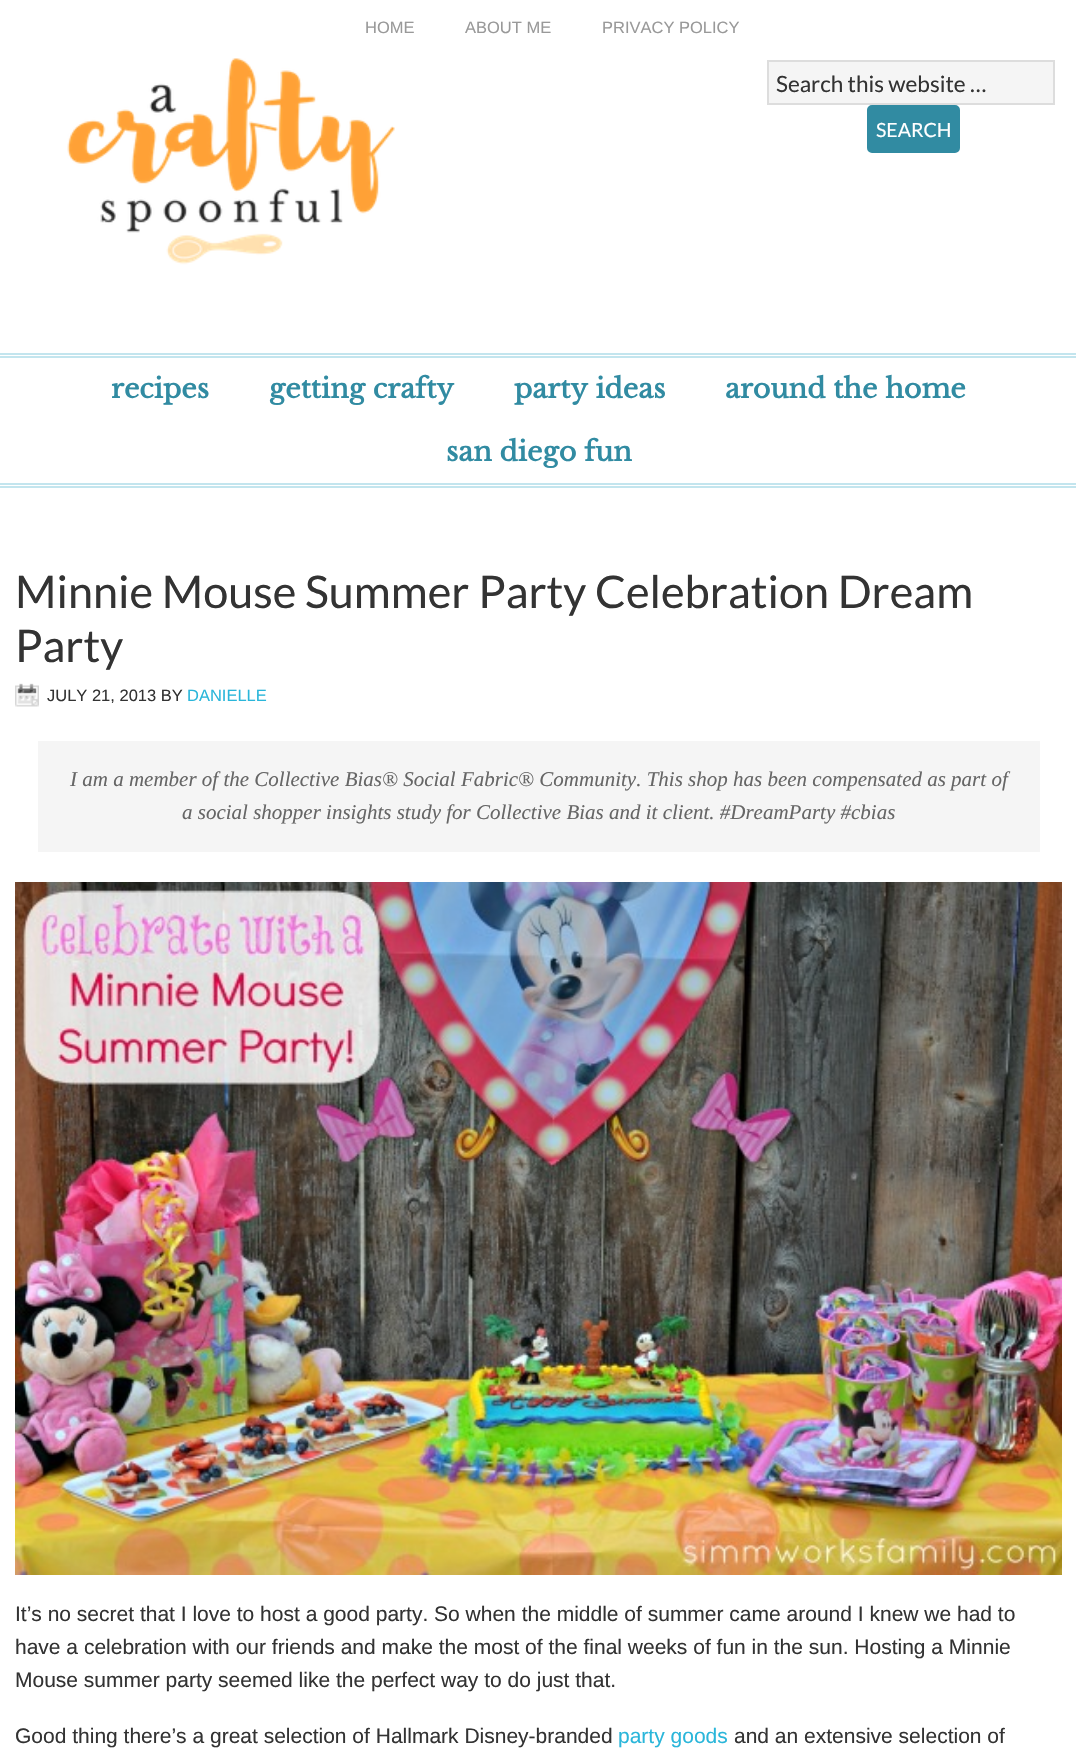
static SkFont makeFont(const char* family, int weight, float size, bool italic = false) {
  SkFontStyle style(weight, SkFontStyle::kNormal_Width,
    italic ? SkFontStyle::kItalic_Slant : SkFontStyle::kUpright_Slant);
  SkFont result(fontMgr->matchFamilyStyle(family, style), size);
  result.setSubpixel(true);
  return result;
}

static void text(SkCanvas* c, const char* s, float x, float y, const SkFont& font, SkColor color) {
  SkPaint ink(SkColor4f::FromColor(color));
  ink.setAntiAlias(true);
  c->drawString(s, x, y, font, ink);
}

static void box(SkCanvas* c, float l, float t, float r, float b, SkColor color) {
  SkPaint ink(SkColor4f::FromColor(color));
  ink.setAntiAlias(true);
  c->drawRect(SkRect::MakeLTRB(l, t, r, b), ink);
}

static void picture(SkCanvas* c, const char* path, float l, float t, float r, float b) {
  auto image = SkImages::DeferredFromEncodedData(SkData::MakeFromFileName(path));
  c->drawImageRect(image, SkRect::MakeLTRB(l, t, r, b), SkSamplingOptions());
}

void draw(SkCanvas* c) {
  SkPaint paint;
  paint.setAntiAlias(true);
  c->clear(0xffffffff);
  SkFont face1 = makeFont("Liberation Sans", 400, 16.5f);
  text(c, "HOME", 365, 33, face1, 0xff999999);
  text(c, "ABOUT ME", 465, 33, face1, 0xff999999);
  text(c, "PRIVACY POLICY", 602, 33, face1, 0xff999999);
  picture(c, "img_01.png", 67, 58, 395, 265);
  paint.setColor(0xfff5f5f5);
  c->drawRect(SkRect::MakeLTRB(768, 61, 1054, 104), paint);
  paint.setStyle(SkPaint::kStroke_Style);
  paint.setStrokeWidth(2);
  paint.setColor(0xffdddddd);
  c->drawRect(SkRect::MakeLTRB(768, 61, 1054, 104), paint);
  SkFont face2 = makeFont("Lato", 400, 22.5f);
  text(c, "Search this website …", 776, 92, face2, 0xff333333);
  paint.setStyle(SkPaint::kFill_Style);
  paint.setColor(0xff318ba2);
  c->drawRoundRect(SkRect::MakeLTRB(868, 106, 959, 152), 4, 4, paint);
  paint.setStyle(SkPaint::kStroke_Style);
  c->drawRoundRect(SkRect::MakeLTRB(868, 106, 959, 152), 4, 4, paint);
  SkFont face3 = makeFont("Lato", 400, 19.5f);
  text(c, "SEARCH", 876, 137, face3, 0xffffffff);
  box(c, 0, 353, 1076, 355, 0xffc3e5ee);
  box(c, 0, 356, 1076, 358, 0xffc3e5ee);
  box(c, 0, 483, 1076, 485, 0xffc3e5ee);
  box(c, 0, 486, 1076, 488, 0xffc3e5ee);
  SkFont face4 = makeFont("Libre Baskerville", 700, 27);
  text(c, "recipes", 111, 398, face4, 0xff318ba2);
  text(c, "getting crafty", 269, 398, face4, 0xff318ba2);
  text(c, "party ideas", 514, 398, face4, 0xff318ba2);
  text(c, "around the home", 725, 398, face4, 0xff318ba2);
  text(c, "san diego fun", 446, 461, face4, 0xff318ba2);
  SkFont face5 = makeFont("Lato", 400, 45);
  text(c, "Minnie Mouse Summer Party Celebration Dream", 15, 608, face5, 0xff333333);
  text(c, "Party", 15, 662, face5, 0xff333333);
  picture(c, "img_02.png", 15, 683, 39, 707);
  text(c, "JULY 21, 2013 BY", 47, 701, face1, 0xff333333);
  text(c, "DANIELLE", 187, 701, face1, 0xff2ab6da);
  box(c, 38, 741, 1040, 852, 0xfff5f5f5);
  SkFont face6 = makeFont("Liberation Serif", 400, 21, true);
  text(c, "I am a member of the Collective Bias® Social Fabric® Community. This shop has been compensated as part of", 70, 786, face6, 0xff666666);
  text(c, "a social shopper insights study for Collective Bias and it client. #DreamParty #cbias", 182, 819, face6, 0xff666666);
  picture(c, "img_03.png", 15, 882, 1062, 1575);
  SkFont face7 = makeFont("Liberation Sans", 400, 21);
  text(c, "It’s no secret that I love to host a good party. So when the middle of summer came around I knew we had to", 15, 1621, face7, 0xff333333);
  text(c, "have a celebration with our friends and make the most of the final weeks of fun in the sun. Hosting a Minnie", 15, 1654, face7, 0xff333333);
  text(c, "Mouse summer party seemed like the perfect way to do just that.", 15, 1687, face7, 0xff333333);
  text(c, "Good thing there’s a great selection of Hallmark Disney-branded", 15, 1743, face7, 0xff333333);
  text(c, "party goods", 618, 1743, face7, 0xff2ab6da);
  text(c, "and an extensive selection of", 734, 1743, face7, 0xff333333);
}
